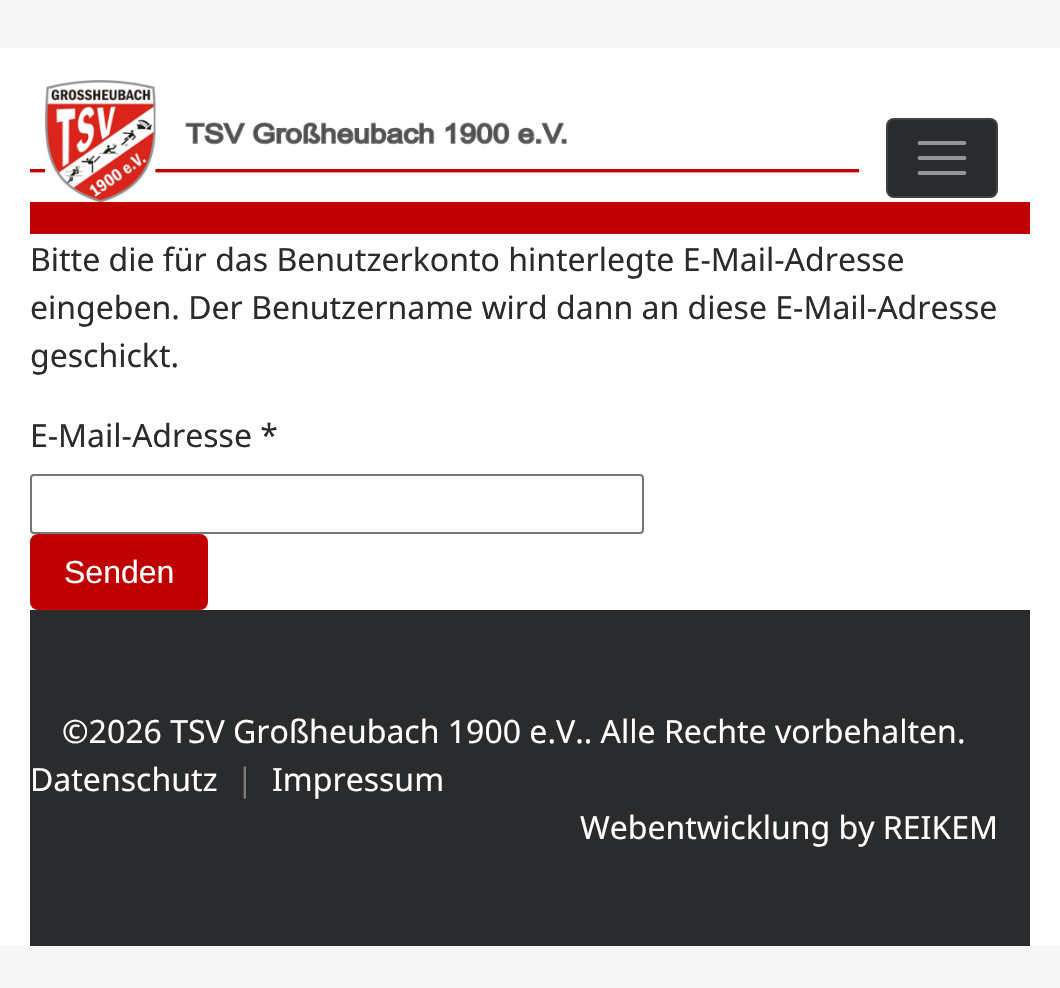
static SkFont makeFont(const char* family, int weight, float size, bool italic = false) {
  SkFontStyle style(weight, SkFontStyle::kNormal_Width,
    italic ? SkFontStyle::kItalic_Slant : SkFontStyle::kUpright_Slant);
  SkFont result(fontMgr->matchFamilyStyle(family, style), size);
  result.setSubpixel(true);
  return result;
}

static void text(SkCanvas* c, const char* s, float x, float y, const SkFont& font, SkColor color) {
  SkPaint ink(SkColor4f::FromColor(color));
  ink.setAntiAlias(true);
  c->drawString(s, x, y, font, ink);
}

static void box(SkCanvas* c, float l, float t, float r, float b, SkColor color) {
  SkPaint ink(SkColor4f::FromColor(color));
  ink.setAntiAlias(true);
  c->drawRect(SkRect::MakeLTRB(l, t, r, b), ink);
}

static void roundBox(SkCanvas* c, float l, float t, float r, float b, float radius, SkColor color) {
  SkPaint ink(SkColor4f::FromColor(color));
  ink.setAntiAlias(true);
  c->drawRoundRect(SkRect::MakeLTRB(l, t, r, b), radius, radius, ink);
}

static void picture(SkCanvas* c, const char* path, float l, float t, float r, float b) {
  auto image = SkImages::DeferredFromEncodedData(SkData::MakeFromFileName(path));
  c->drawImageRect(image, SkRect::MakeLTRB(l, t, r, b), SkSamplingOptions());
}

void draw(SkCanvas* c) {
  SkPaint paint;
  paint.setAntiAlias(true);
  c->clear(0xfff7f7f7);
  box(c, 0, 48, 1060, 946, 0xffffffff);
  picture(c, "img_01.png", 30, 80, 859, 202);
  box(c, 30, 202, 1030, 234, 0xffc00000);
  roundBox(c, 886, 118, 998, 198, 8, 0xff292b2c);
  paint.setStyle(SkPaint::kStroke_Style);
  paint.setStrokeWidth(2);
  paint.setColor(0x1affffff);
  c->drawRoundRect(SkRect::MakeLTRB(887, 119, 997, 197), 7, 7, paint);
  paint.setStrokeWidth(3.8f);
  paint.setStrokeCap(SkPaint::kRound_Cap);
  paint.setColor(0xff949596);
  c->drawPath(SkPathBuilder().moveTo(919.5f, 143).lineTo(964.5f, 143).moveTo(919.5f, 158).lineTo(964.5f, 158).moveTo(919.5f, 173).lineTo(964.5f, 173).detach(), paint);
  SkFont face1 = makeFont("Noto Sans", 400, 32);
  text(c, "Bitte die für das Benutzerkonto hinterlegte E-Mail-Adresse", 30, 271, face1, 0xff292b2c);
  text(c, "eingeben. Der Benutzername wird dann an diese E-Mail-Adresse", 30, 319, face1, 0xff292b2c);
  text(c, "geschickt.", 30, 367, face1, 0xff292b2c);
  text(c, "E-Mail-Adresse *", 30, 447, face1, 0xff292b2c);
  paint.setStrokeWidth(2);
  paint.setStrokeCap(SkPaint::kButt_Cap);
  paint.setColor(0xff767676);
  c->drawRoundRect(SkRect::MakeLTRB(31, 475, 643, 533), 3, 3, paint);
  paint.setStyle(SkPaint::kFill_Style);
  paint.setColor(0xffc00000);
  c->drawRoundRect(SkRect::MakeLTRB(31, 535, 207, 609), 7, 7, paint);
  paint.setStyle(SkPaint::kStroke_Style);
  c->drawRoundRect(SkRect::MakeLTRB(31, 535, 207, 609), 7, 7, paint);
  SkFont face2 = makeFont("Liberation Sans", 400, 32);
  text(c, "Senden", 64, 583, face2, 0xffffffff);
  box(c, 30, 610, 1030, 946, 0xff292b2c);
  text(c, "©2026 TSV Großheubach 1900 e.V.. Alle Rechte vorbehalten.", 62, 743, face1, 0xffffffff);
  text(c, "Datenschutz", 30, 791, face1, 0xffffffff);
  text(c, "|", 236, 791, face1, 0xff7a7a7a);
  text(c, "Impressum", 272, 791, face1, 0xffffffff);
  text(c, "Webentwicklung by REIKEM", 580, 839, face1, 0xffffffff);
}
